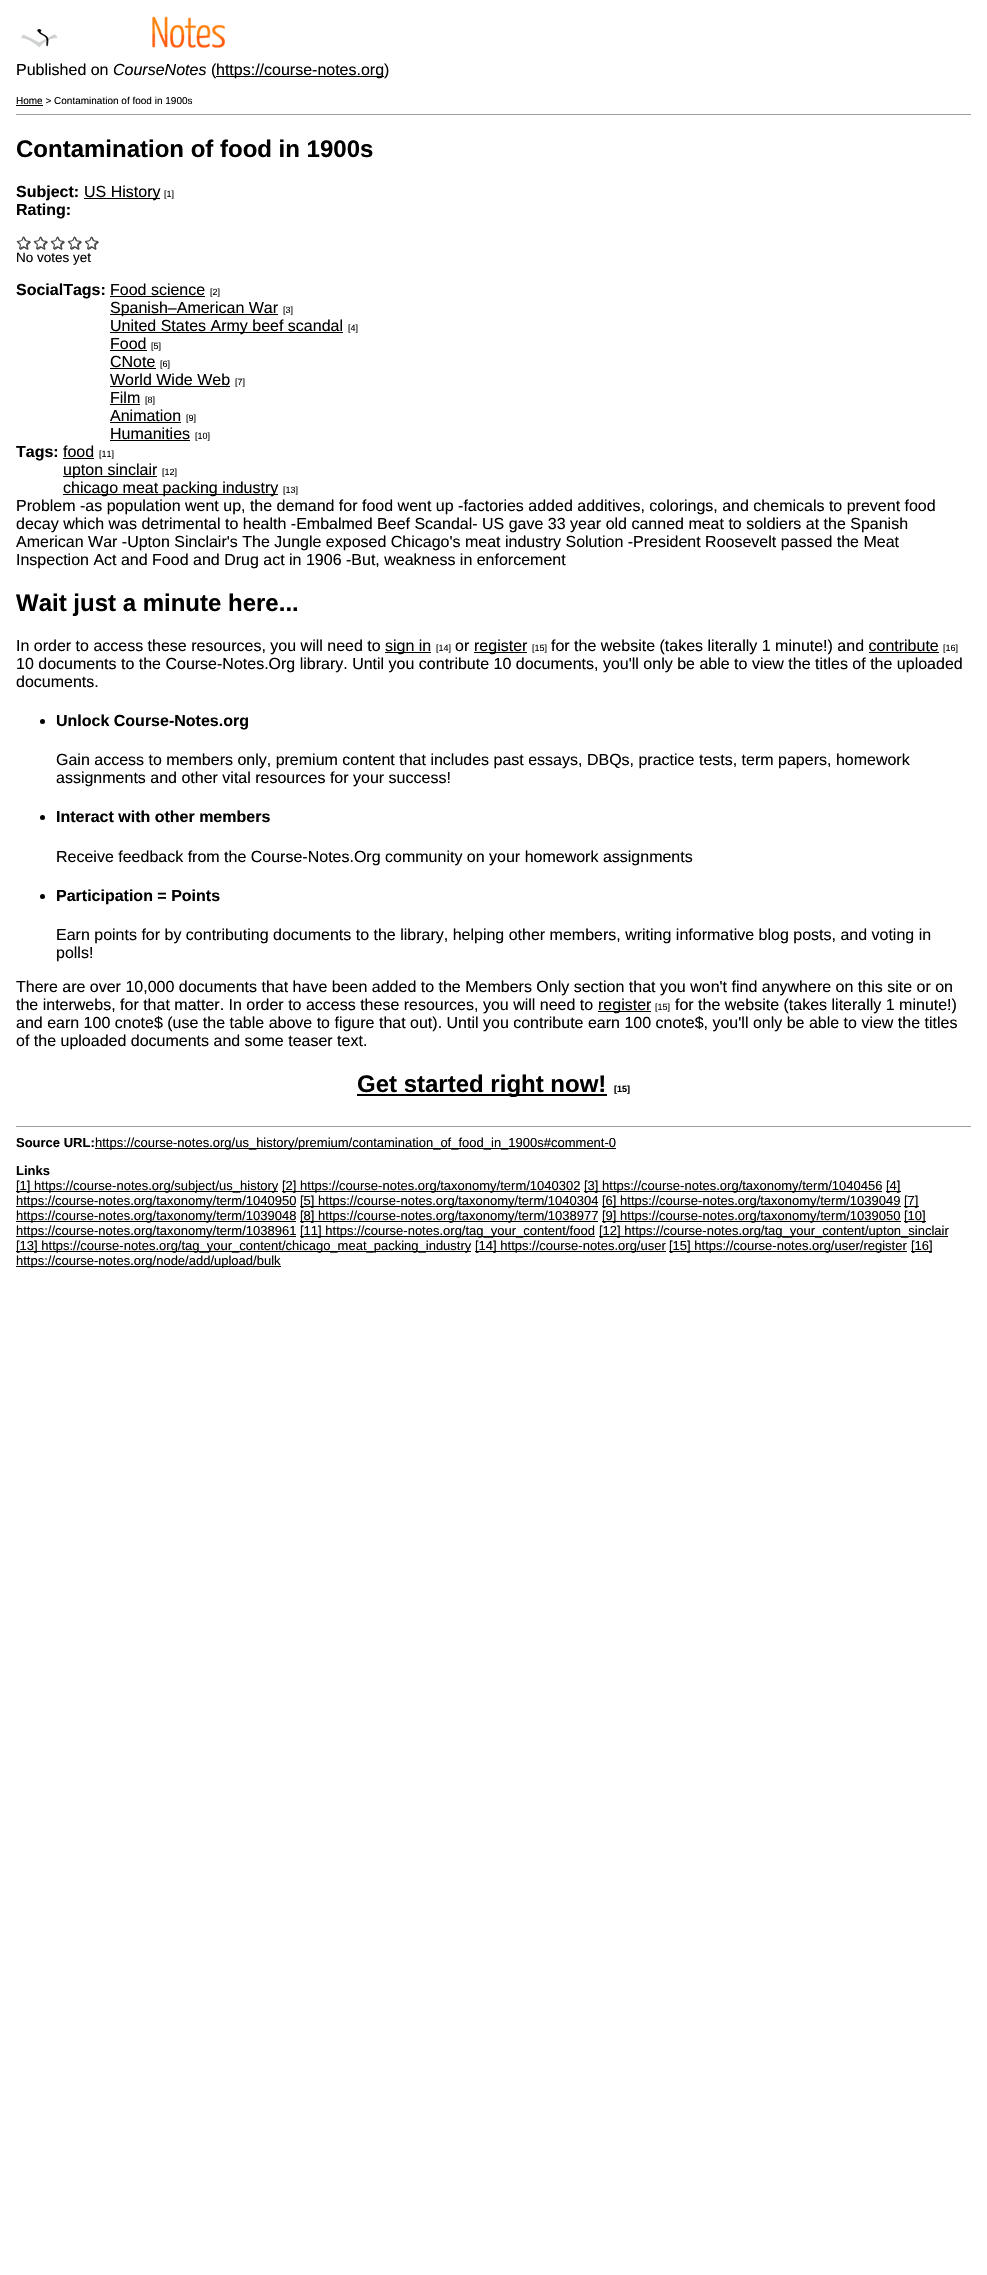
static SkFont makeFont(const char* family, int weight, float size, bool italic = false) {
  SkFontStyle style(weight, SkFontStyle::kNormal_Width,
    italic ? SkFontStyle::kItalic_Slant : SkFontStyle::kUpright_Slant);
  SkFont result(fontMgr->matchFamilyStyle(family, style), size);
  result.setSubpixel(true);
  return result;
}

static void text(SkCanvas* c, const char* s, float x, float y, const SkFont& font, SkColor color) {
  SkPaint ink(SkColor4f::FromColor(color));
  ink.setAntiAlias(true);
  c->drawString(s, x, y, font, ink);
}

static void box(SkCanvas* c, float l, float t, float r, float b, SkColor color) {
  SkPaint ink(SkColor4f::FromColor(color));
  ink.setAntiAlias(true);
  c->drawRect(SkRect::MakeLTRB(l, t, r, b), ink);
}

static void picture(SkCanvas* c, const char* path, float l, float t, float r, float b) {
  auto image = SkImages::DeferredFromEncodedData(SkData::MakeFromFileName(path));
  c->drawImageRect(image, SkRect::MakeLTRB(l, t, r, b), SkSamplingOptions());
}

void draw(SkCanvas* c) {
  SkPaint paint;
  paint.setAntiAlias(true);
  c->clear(0xffffffff);
  picture(c, "img_01.png", 20, 16, 225, 48);
  SkFont face1 = makeFont("Liberation Sans", 400, 16);
  text(c, "Published on", 16, 75, face1, 0xff000000);
  SkFont face2 = makeFont("Liberation Sans", 400, 16, true);
  text(c, "CourseNotes", 113, 75, face2, 0xff000000);
  text(c, "(", 211, 75, face1, 0xff000000);
  box(c, 216, 76, 384, 77, 0xff000000);
  text(c, "https://course-notes.org)", 216, 75, face1, 0xff000000);
  SkFont face3 = makeFont("Liberation Sans", 400, 10);
  text(c, "Home > Contamination of food in 1900s", 16, 104, face3, 0xff000000);
  box(c, 16, 105, 43, 106, 0xff000000);
  box(c, 16, 114, 971, 115, 0xff9e9e9e);
  SkFont face4 = makeFont("Liberation Sans", 700, 24);
  text(c, "Contamination of food in 1900s", 16, 157, face4, 0xff000000);
  SkFont face5 = makeFont("Liberation Sans", 700, 16);
  text(c, "Subject:", 16, 197, face5, 0xff000000);
  box(c, 84, 198, 160, 199, 0xff000000);
  text(c, "US History", 84, 197, face1, 0xff000000);
  SkFont face6 = makeFont("Liberation Sans", 400, 9);
  text(c, "[1]", 164, 197, face6, 0xff000000);
  text(c, "Rating:", 16, 215, face5, 0xff000000);
  picture(c, "img_02.png", 16, 236, 31, 250);
  picture(c, "img_02.png", 33, 236, 48, 250);
  picture(c, "img_02.png", 50, 236, 65, 250);
  picture(c, "img_02.png", 67, 236, 82, 250);
  picture(c, "img_02.png", 84, 236, 99, 250);
  SkFont face7 = makeFont("Liberation Sans", 400, 13.5f);
  text(c, "No votes yet", 16, 262, face7, 0xff000000);
  text(c, "SocialTags:", 16, 295, face5, 0xff000000);
  text(c, "Food science", 110, 295, face1, 0xff000000);
  box(c, 110, 296, 205, 297, 0xff000000);
  text(c, "[2]", 210, 295, face6, 0xff000000);
  box(c, 110, 314, 278, 315, 0xff000000);
  text(c, "Spanish–American War", 110, 313, face1, 0xff000000);
  text(c, "[3]", 283, 313, face6, 0xff000000);
  box(c, 110, 332, 343, 333, 0xff000000);
  text(c, "United States Army beef scandal", 110, 331, face1, 0xff000000);
  text(c, "[4]", 348, 331, face6, 0xff000000);
  text(c, "Food", 110, 349, face1, 0xff000000);
  box(c, 110, 350, 147, 351, 0xff000000);
  text(c, "[5]", 151, 349, face6, 0xff000000);
  text(c, "CNote", 110, 367, face1, 0xff000000);
  box(c, 110, 368, 156, 369, 0xff000000);
  text(c, "[6]", 160, 367, face6, 0xff000000);
  text(c, "World Wide Web", 110, 385, face1, 0xff000000);
  box(c, 110, 386, 230, 387, 0xff000000);
  text(c, "[7]", 235, 385, face6, 0xff000000);
  text(c, "Film", 110, 403, face1, 0xff000000);
  box(c, 110, 404, 140, 405, 0xff000000);
  text(c, "[8]", 145, 403, face6, 0xff000000);
  text(c, "Animation", 110, 421, face1, 0xff000000);
  box(c, 110, 422, 181, 423, 0xff000000);
  text(c, "[9]", 186, 421, face6, 0xff000000);
  text(c, "Humanities", 110, 439, face1, 0xff000000);
  box(c, 110, 440, 190, 441, 0xff000000);
  text(c, "[10]", 195, 439, face6, 0xff000000);
  text(c, "Tags:", 16, 457, face5, 0xff000000);
  text(c, "food", 63, 457, face1, 0xff000000);
  box(c, 63, 458, 94, 459, 0xff000000);
  text(c, "[11]", 99, 457, face6, 0xff000000);
  box(c, 63, 476, 157, 477, 0xff000000);
  text(c, "upton sinclair", 63, 475, face1, 0xff000000);
  text(c, "[12]", 162, 475, face6, 0xff000000);
  box(c, 63, 494, 278, 495, 0xff000000);
  text(c, "chicago meat packing industry", 63, 493, face1, 0xff000000);
  text(c, "[13]", 283, 493, face6, 0xff000000);
  text(c, "Problem -as population went up, the demand for food went up -factories added additives, colorings, and chemicals to prevent food", 16, 511, face1, 0xff000000);
  text(c, "decay which was detrimental to health -Embalmed Beef Scandal- US gave 33 year old canned meat to soldiers at the Spanish", 16, 529, face1, 0xff000000);
  text(c, "American War -Upton Sinclair's The Jungle exposed Chicago's meat industry Solution -President Roosevelt passed the Meat", 16, 547, face1, 0xff000000);
  text(c, "Inspection Act and Food and Drug act in 1906 -But, weakness in enforcement", 16, 565, face1, 0xff000000);
  text(c, "Wait just a minute here...", 16, 611, face4, 0xff000000);
  text(c, "In order to access these resources, you will need to", 16, 651, face1, 0xff000000);
  box(c, 385, 652, 431, 653, 0xff000000);
  text(c, "sign in", 385, 651, face1, 0xff000000);
  text(c, "[14]", 436, 651, face6, 0xff000000);
  text(c, "or", 455, 651, face1, 0xff000000);
  box(c, 474, 652, 527, 653, 0xff000000);
  text(c, "register", 474, 651, face1, 0xff000000);
  text(c, "[15]", 532, 651, face6, 0xff000000);
  text(c, "for the website (takes literally 1 minute!) and contribute", 551, 651, face1, 0xff000000);
  text(c, "[16]", 943, 651, face6, 0xff000000);
  box(c, 869, 652, 939, 653, 0xff000000);
  text(c, "10 documents to the Course-Notes.Org library. Until you contribute 10 documents, you'll only be able to view the titles of the uploaded", 16, 669, face1, 0xff000000);
  text(c, "documents.", 16, 687, face1, 0xff000000);
  paint.setColor(0xff000000);
  c->drawCircle(42.5f, 721.5f, 2.5f, paint);
  text(c, "Unlock Course-Notes.org", 56, 726, face5, 0xff000000);
  text(c, "Gain access to members only, premium content that includes past essays, DBQs, practice tests, term papers, homework", 56, 765, face1, 0xff000000);
  text(c, "assignments and other vital resources for your success!", 56, 783, face1, 0xff000000);
  c->drawCircle(42.5f, 817.5f, 2.5f, paint);
  text(c, "Interact with other members", 56, 822, face5, 0xff000000);
  text(c, "Receive feedback from the Course-Notes.Org community on your homework assignments", 56, 862, face1, 0xff000000);
  c->drawCircle(42.5f, 896.5f, 2.5f, paint);
  text(c, "Participation = Points", 56, 901, face5, 0xff000000);
  text(c, "Earn points for by contributing documents to the library, helping other members, writing informative blog posts, and voting in", 56, 940, face1, 0xff000000);
  text(c, "polls!", 56, 958, face1, 0xff000000);
  text(c, "There are over 10,000 documents that have been added to the Members Only section that you won't find anywhere on this site or on", 16, 992, face1, 0xff000000);
  text(c, "the interwebs, for that matter. In order to access these resources, you will need to", 16, 1010, face1, 0xff000000);
  box(c, 598, 1011, 651, 1012, 0xff000000);
  text(c, "register", 598, 1010, face1, 0xff000000);
  text(c, "[15]", 655, 1010, face6, 0xff000000);
  text(c, "for the website (takes literally 1 minute!)", 675, 1010, face1, 0xff000000);
  text(c, "and earn 100 cnote$ (use the table above to figure that out). Until you contribute earn 100 cnote$, you'll only be able to view the titles", 16, 1028, face1, 0xff000000);
  text(c, "of the uploaded documents and some teaser text.", 16, 1046, face1, 0xff000000);
  box(c, 357, 1094, 607, 1096, 0xff000000);
  text(c, "Get started right now!", 357, 1092, face4, 0xff000000);
  SkFont face8 = makeFont("Liberation Sans", 700, 9);
  text(c, "[15]", 614, 1092, face8, 0xff000000);
  box(c, 16, 1126, 971, 1127, 0xff9e9e9e);
  SkFont face9 = makeFont("Liberation Sans", 700, 13);
  text(c, "Source URL:", 16, 1147, face9, 0xff000000);
  box(c, 95, 1148, 616, 1149, 0xff000000);
  SkFont face10 = makeFont("Liberation Sans", 400, 13);
  text(c, "https://course-notes.org/us_history/premium/contamination_of_food_in_1900s#comment-0", 95, 1147, face10, 0xff000000);
  text(c, "Links", 16, 1175, face9, 0xff000000);
  box(c, 16, 1191, 278, 1192, 0xff000000);
  text(c, "[1] https://course-notes.org/subject/us_history", 16, 1190, face10, 0xff000000);
  box(c, 282, 1191, 580, 1192, 0xff000000);
  text(c, "[2] https://course-notes.org/taxonomy/term/1040302", 282, 1190, face10, 0xff000000);
  box(c, 584, 1191, 882, 1192, 0xff000000);
  text(c, "[3] https://course-notes.org/taxonomy/term/1040456", 584, 1190, face10, 0xff000000);
  box(c, 886, 1191, 901, 1192, 0xff000000);
  text(c, "[4]", 886, 1190, face10, 0xff000000);
  box(c, 16, 1206, 296, 1207, 0xff000000);
  text(c, "https://course-notes.org/taxonomy/term/1040950", 16, 1205, face10, 0xff000000);
  box(c, 300, 1206, 598, 1207, 0xff000000);
  text(c, "[5] https://course-notes.org/taxonomy/term/1040304", 300, 1205, face10, 0xff000000);
  box(c, 602, 1206, 901, 1207, 0xff000000);
  text(c, "[6] https://course-notes.org/taxonomy/term/1039049", 602, 1205, face10, 0xff000000);
  box(c, 904, 1206, 919, 1207, 0xff000000);
  text(c, "[7]", 904, 1205, face10, 0xff000000);
  box(c, 16, 1221, 296, 1222, 0xff000000);
  text(c, "https://course-notes.org/taxonomy/term/1039048", 16, 1220, face10, 0xff000000);
  box(c, 300, 1221, 598, 1222, 0xff000000);
  text(c, "[8] https://course-notes.org/taxonomy/term/1038977", 300, 1220, face10, 0xff000000);
  box(c, 602, 1221, 901, 1222, 0xff000000);
  text(c, "[9] https://course-notes.org/taxonomy/term/1039050", 602, 1220, face10, 0xff000000);
  box(c, 904, 1221, 926, 1222, 0xff000000);
  text(c, "[10]", 904, 1220, face10, 0xff000000);
  box(c, 16, 1236, 296, 1237, 0xff000000);
  text(c, "https://course-notes.org/taxonomy/term/1038961", 16, 1235, face10, 0xff000000);
  box(c, 300, 1236, 595, 1237, 0xff000000);
  text(c, "[11] https://course-notes.org/tag_your_content/food", 300, 1235, face10, 0xff000000);
  box(c, 599, 1236, 948, 1237, 0xff000000);
  text(c, "[12] https://course-notes.org/tag_your_content/upton_sinclair", 599, 1235, face10, 0xff000000);
  box(c, 16, 1251, 471, 1252, 0xff000000);
  text(c, "[13] https://course-notes.org/tag_your_content/chicago_meat_packing_industry", 16, 1250, face10, 0xff000000);
  box(c, 475, 1251, 666, 1252, 0xff000000);
  text(c, "[14] https://course-notes.org/user", 475, 1250, face10, 0xff000000);
  box(c, 669, 1251, 907, 1252, 0xff000000);
  text(c, "[15] https://course-notes.org/user/register", 669, 1250, face10, 0xff000000);
  box(c, 911, 1251, 932, 1252, 0xff000000);
  text(c, "[16]", 911, 1250, face10, 0xff000000);
  box(c, 16, 1266, 281, 1267, 0xff000000);
  text(c, "https://course-notes.org/node/add/upload/bulk", 16, 1265, face10, 0xff000000);
}
